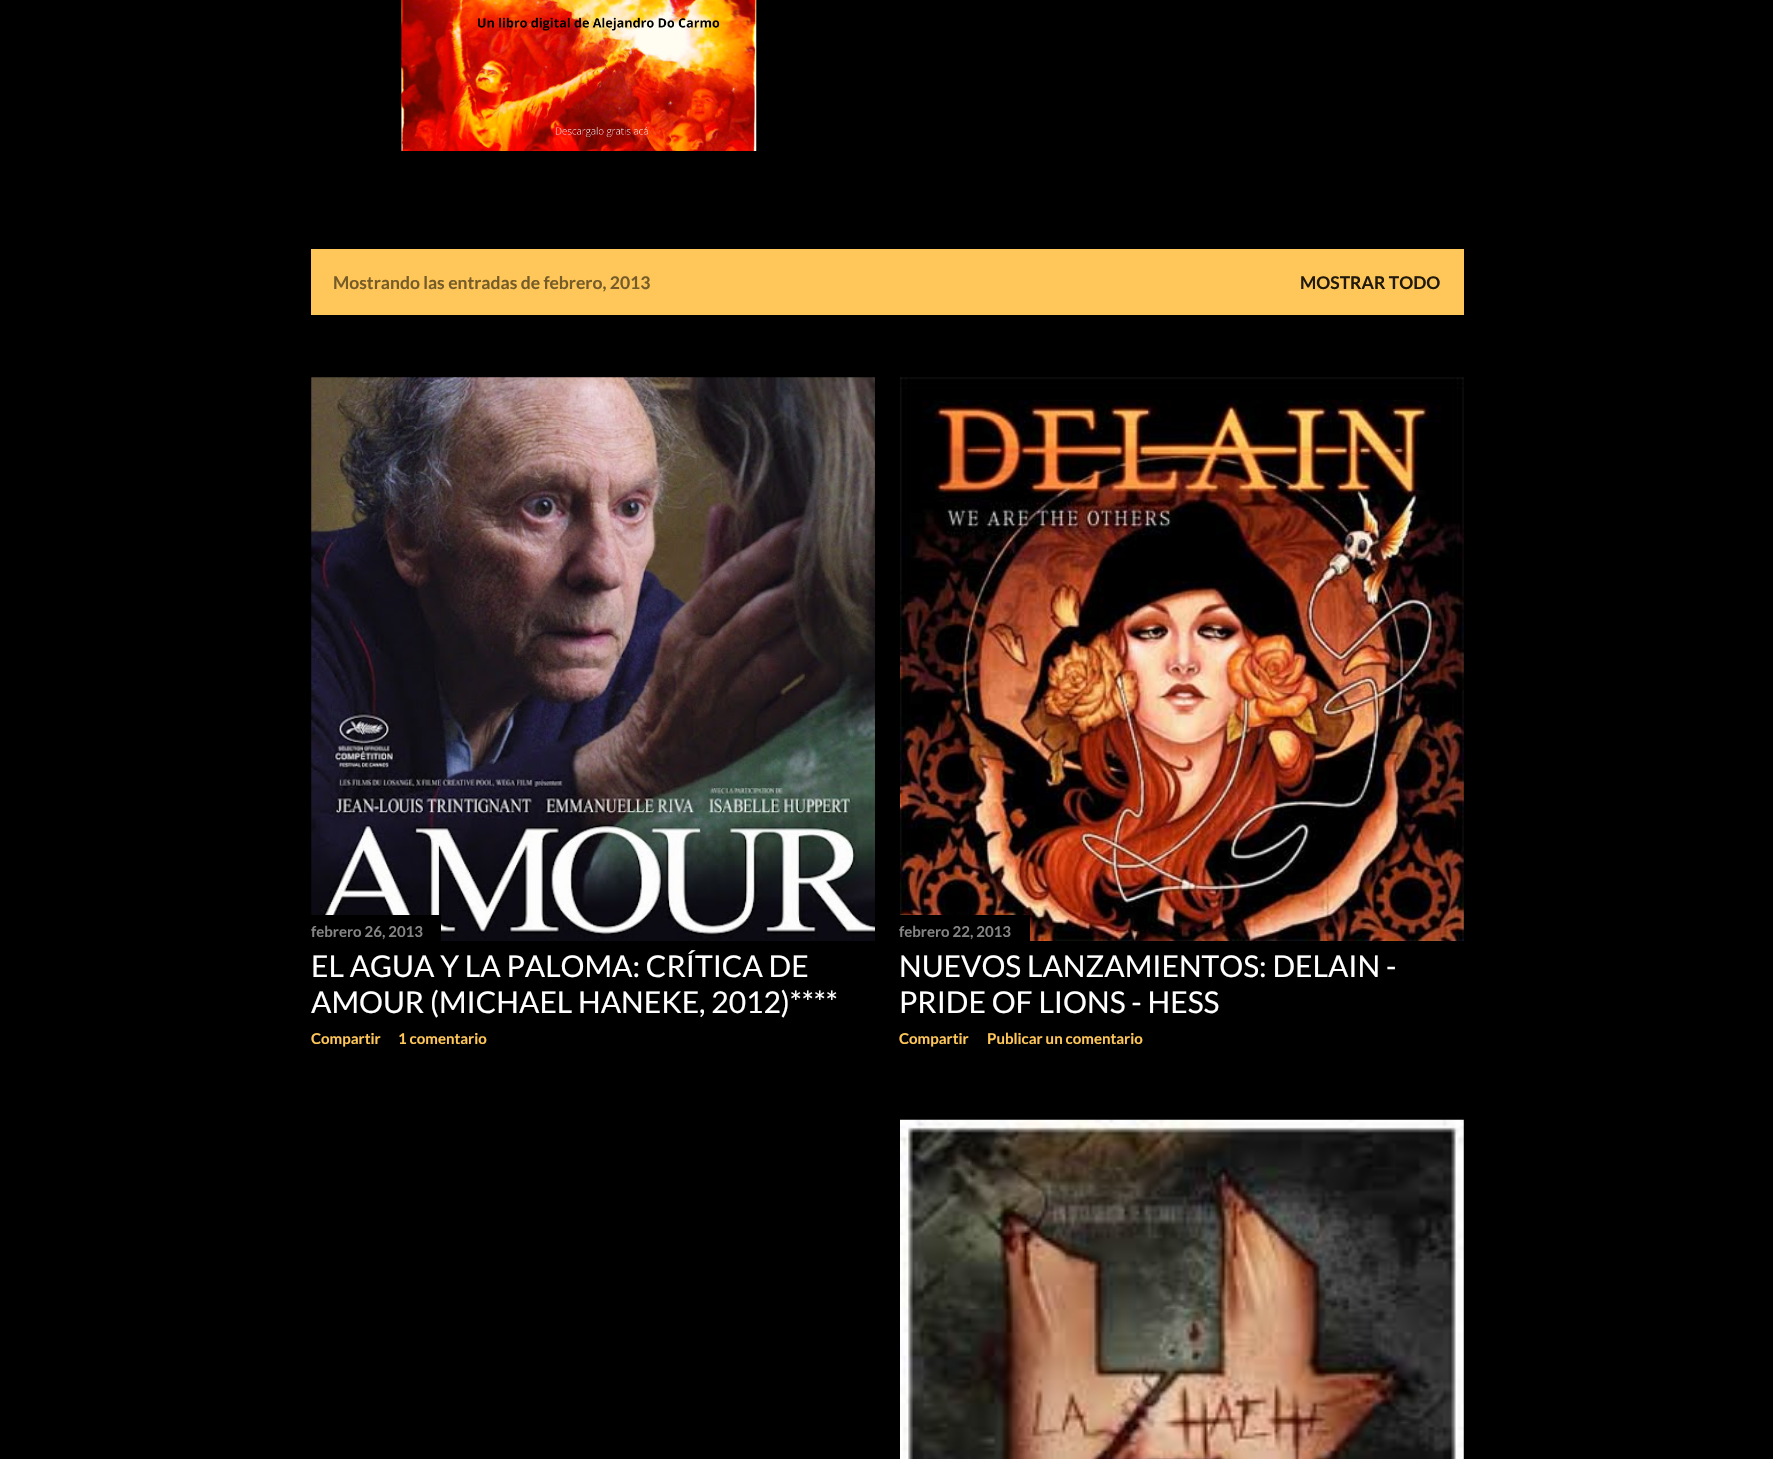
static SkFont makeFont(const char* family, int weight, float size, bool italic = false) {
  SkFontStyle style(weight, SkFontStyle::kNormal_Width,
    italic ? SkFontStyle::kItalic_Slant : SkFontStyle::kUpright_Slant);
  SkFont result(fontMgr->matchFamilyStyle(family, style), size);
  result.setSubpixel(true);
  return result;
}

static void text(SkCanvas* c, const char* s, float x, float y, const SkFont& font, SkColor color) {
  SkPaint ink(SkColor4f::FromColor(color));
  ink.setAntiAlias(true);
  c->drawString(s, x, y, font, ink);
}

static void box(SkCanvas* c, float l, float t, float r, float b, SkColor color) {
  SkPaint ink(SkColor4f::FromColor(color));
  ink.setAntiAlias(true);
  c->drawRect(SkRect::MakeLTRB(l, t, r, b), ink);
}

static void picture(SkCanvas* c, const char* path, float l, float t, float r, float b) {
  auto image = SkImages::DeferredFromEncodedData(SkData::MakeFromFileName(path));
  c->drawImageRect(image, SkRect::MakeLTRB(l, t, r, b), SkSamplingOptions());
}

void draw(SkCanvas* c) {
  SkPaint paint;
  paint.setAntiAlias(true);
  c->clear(0xff000000);
  picture(c, "img_01.png", 401, 0, 757, 151);
  box(c, 311, 249, 1464, 315, 0xffffc759);
  SkFont face1 = makeFont("Lato", 700, 17.5f);
  text(c, "Mostrando las entradas de febrero, 2013", 333, 289, face1, 0xff755c29);
  text(c, "MOSTRAR TODO", 1300, 289, face1, 0xff211a0c);
  picture(c, "img_02.png", 311, 377, 875, 941);
  box(c, 311, 915, 441, 941, 0xff000000);
  SkFont face2 = makeFont("Lato", 700, 15);
  text(c, "febrero 26, 2013", 311, 937, face2, 0xff858585);
  SkFont face3 = makeFont("Lato", 400, 30);
  text(c, "EL AGUA Y LA PALOMA: CRÍTICA DE", 311, 977, face3, 0xffffffff);
  text(c, "AMOUR (MICHAEL HANEKE, 2012)****", 311, 1013, face3, 0xffffffff);
  text(c, "Compartir", 311, 1044, face2, 0xffffc759);
  text(c, "1 comentario", 398, 1044, face2, 0xffffc759);
  picture(c, "img_03.png", 900, 377, 1464, 941);
  box(c, 900, 915, 1030, 941, 0xff000000);
  text(c, "febrero 22, 2013", 899, 937, face2, 0xff858585);
  text(c, "NUEVOS LANZAMIENTOS: DELAIN -", 899, 977, face3, 0xffffffff);
  text(c, "PRIDE OF LIONS - HESS", 899, 1013, face3, 0xffffffff);
  text(c, "Compartir", 899, 1044, face2, 0xffffc759);
  text(c, "Publicar un comentario", 987, 1044, face2, 0xffffc759);
  picture(c, "img_04.png", 900, 1119, 1464, 1459);
}
